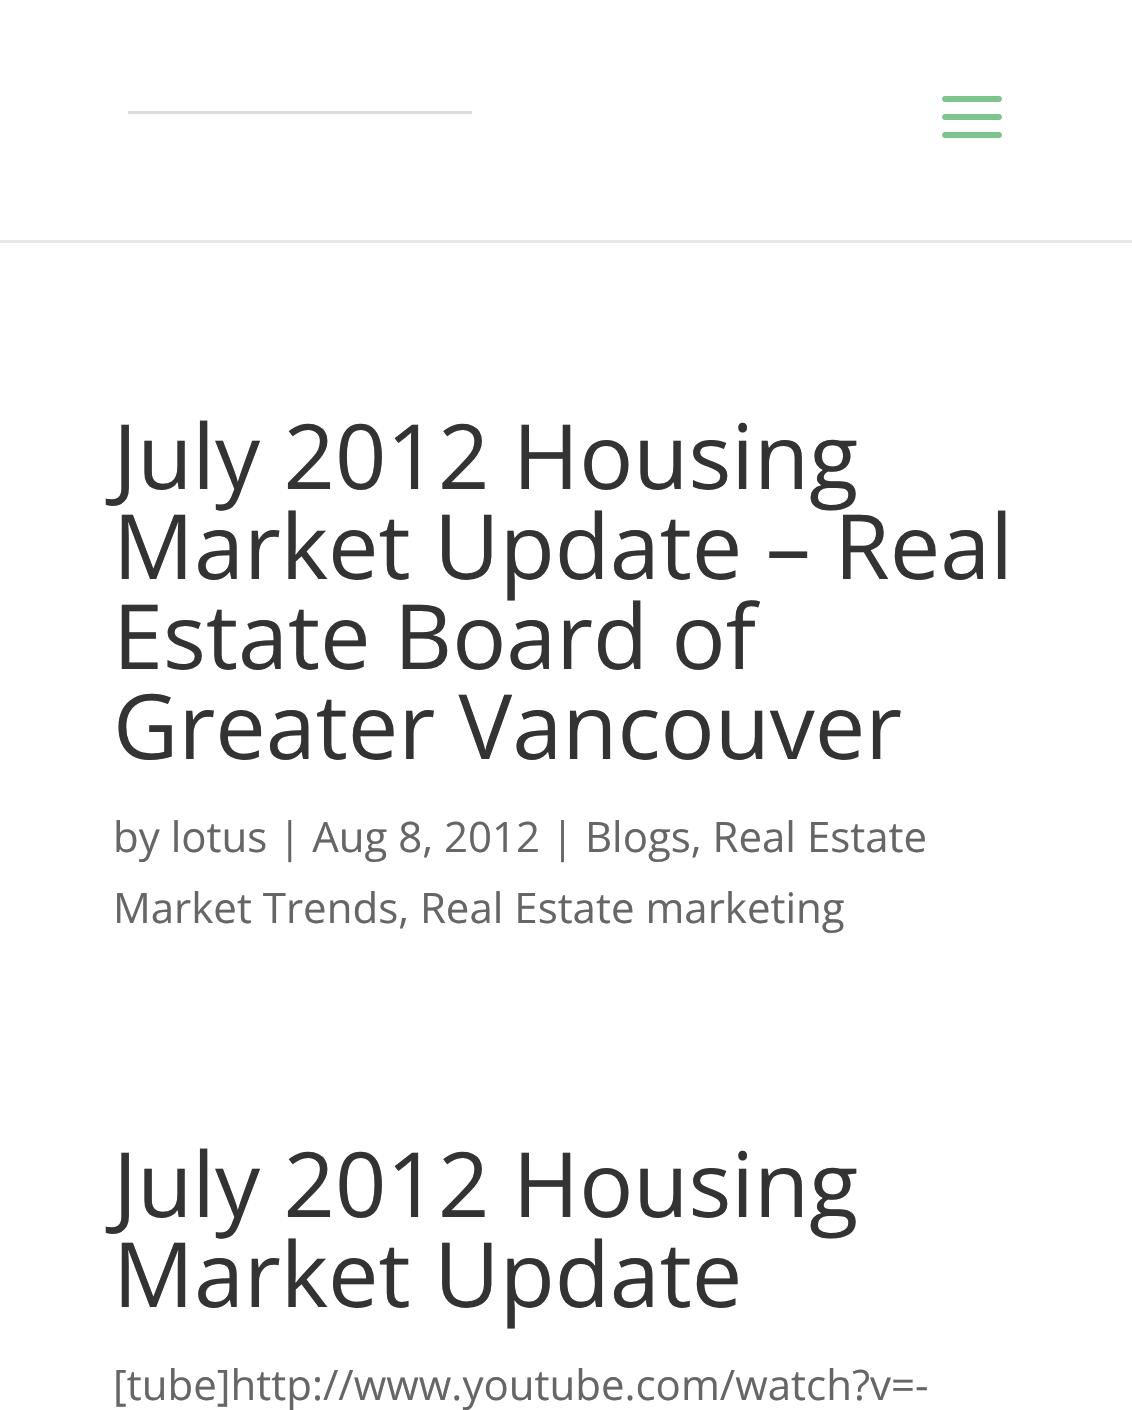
static SkFont makeFont(const char* family, int weight, float size, bool italic = false) {
  SkFontStyle style(weight, SkFontStyle::kNormal_Width,
    italic ? SkFontStyle::kItalic_Slant : SkFontStyle::kUpright_Slant);
  SkFont result(fontMgr->matchFamilyStyle(family, style), size);
  result.setSubpixel(true);
  return result;
}

static void text(SkCanvas* c, const char* s, float x, float y, const SkFont& font, SkColor color) {
  SkPaint ink(SkColor4f::FromColor(color));
  ink.setAntiAlias(true);
  c->drawString(s, x, y, font, ink);
}

static void box(SkCanvas* c, float l, float t, float r, float b, SkColor color) {
  SkPaint ink(SkColor4f::FromColor(color));
  ink.setAntiAlias(true);
  c->drawRect(SkRect::MakeLTRB(l, t, r, b), ink);
}

static void picture(SkCanvas* c, const char* path, float l, float t, float r, float b) {
  auto image = SkImages::DeferredFromEncodedData(SkData::MakeFromFileName(path));
  c->drawImageRect(image, SkRect::MakeLTRB(l, t, r, b), SkSamplingOptions());
}

void draw(SkCanvas* c) {
  SkPaint paint;
  paint.setAntiAlias(true);
  c->clear(0xffffffff);
  box(c, 0, 240, 1132, 243, 0xffe6e6e6);
  box(c, 128, 111, 472, 114, 0xffdcdcdc);
  picture(c, "img_01.png", 942, 96, 1002, 138);
  SkFont face1 = makeFont("Open Sans", 400, 90);
  text(c, "July 2012 Housing", 113, 489, face1, 0xff333333);
  text(c, "Market Update – Real", 113, 579, face1, 0xff333333);
  text(c, "Estate Board of", 113, 669, face1, 0xff333333);
  text(c, "Greater Vancouver", 113, 759, face1, 0xff333333);
  SkFont face2 = makeFont("Open Sans", 400, 42);
  text(c, "by lotus | Aug 8, 2012 | Blogs, Real Estate", 113, 852, face2, 0xff666666);
  text(c, "Market Trends, Real Estate marketing", 113, 923, face2, 0xff666666);
  text(c, "July 2012 Housing", 113, 1217, face1, 0xff333333);
  text(c, "Market Update", 113, 1307, face1, 0xff333333);
  text(c, "[tube]http://www.youtube.com/watch?v=-", 113, 1400, face2, 0xff666666);
}
